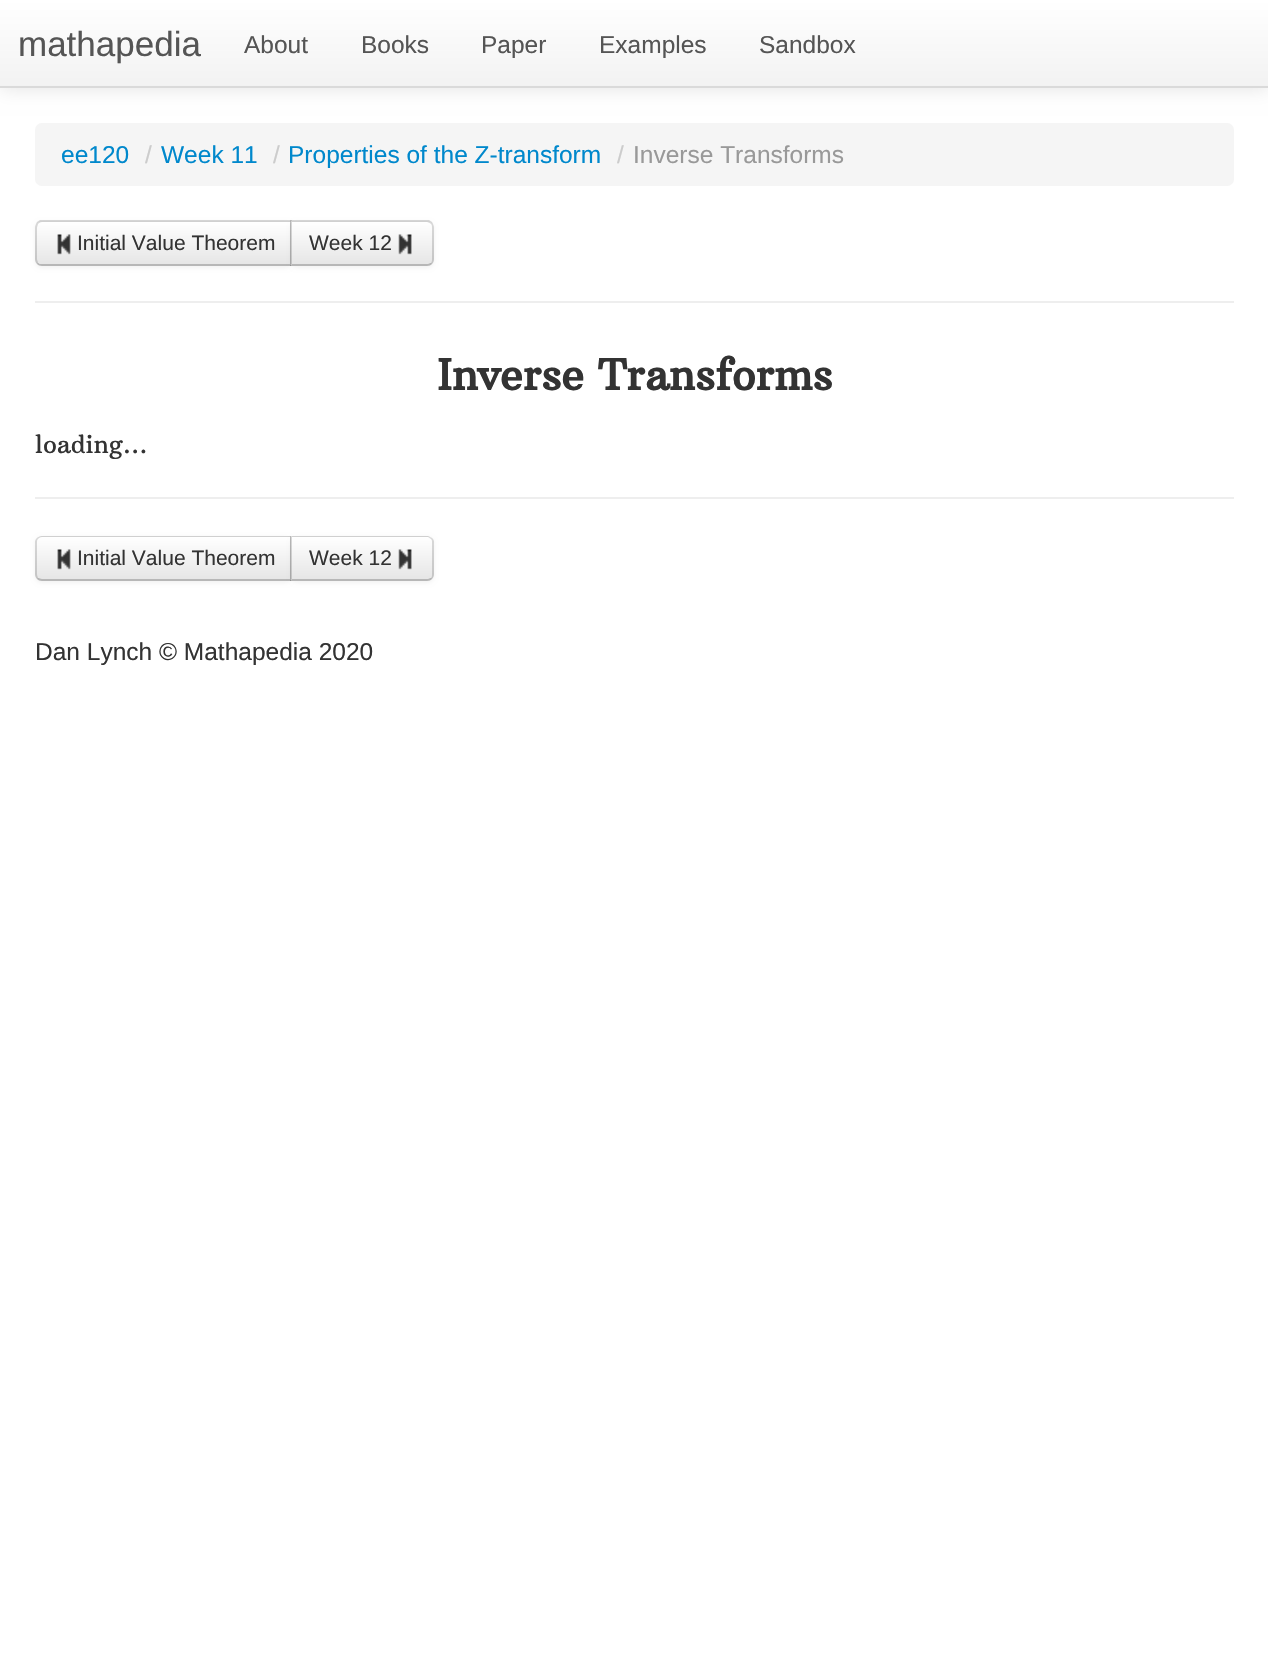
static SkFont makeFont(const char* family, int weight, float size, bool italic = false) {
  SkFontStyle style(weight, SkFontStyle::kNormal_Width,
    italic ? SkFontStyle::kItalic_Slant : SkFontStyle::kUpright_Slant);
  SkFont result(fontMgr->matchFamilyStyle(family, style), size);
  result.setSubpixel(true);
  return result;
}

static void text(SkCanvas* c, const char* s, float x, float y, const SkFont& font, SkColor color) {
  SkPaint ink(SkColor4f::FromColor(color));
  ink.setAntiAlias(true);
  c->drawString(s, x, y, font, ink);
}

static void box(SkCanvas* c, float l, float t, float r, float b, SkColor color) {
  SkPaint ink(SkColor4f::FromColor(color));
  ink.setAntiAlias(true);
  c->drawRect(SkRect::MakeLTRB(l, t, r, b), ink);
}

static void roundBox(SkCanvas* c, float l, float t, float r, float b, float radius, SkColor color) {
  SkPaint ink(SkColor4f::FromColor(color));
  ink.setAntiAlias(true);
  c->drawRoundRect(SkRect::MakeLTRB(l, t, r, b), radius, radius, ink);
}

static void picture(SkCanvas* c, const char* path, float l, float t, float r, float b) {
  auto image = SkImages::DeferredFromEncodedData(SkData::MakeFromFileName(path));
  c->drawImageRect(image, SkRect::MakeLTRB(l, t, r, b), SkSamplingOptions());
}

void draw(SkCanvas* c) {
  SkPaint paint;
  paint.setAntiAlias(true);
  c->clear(0xffffffff);
  paint.setColor(0x1a000000);
  paint.setMaskFilter(SkMaskFilter::MakeBlur(kNormal_SkBlurStyle, 9));
  c->drawRect(SkRect::MakeLTRB(0, 2, 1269, 89), paint);
  paint.setMaskFilter(nullptr);
  {
    const SkColor colors[] = {0xffffffff, 0xfff2f2f2};
    const float stops[] = {0, 1};
    const SkPoint ends[] = {{634, 0}, {634, 88}};
    paint.setShader(SkGradientShader::MakeLinear(ends, colors, stops, 2, SkTileMode::kClamp));
    paint.setAlpha(255);
  }
  c->drawRect(SkRect::MakeLTRB(0, 0, 1268, 86), paint);
  box(c, 0, 86, 1268, 88, 0xffdadada);
  SkFont face1 = makeFont("Liberation Sans", 400, 35);
  text(c, "mathapedia", 18, 56, face1, 0xff555555);
  SkFont face2 = makeFont("Liberation Sans", 400, 24.5f);
  text(c, "About", 244, 53, face2, 0xff555555);
  text(c, "Books", 361, 53, face2, 0xff555555);
  text(c, "Paper", 481, 53, face2, 0xff555555);
  text(c, "Examples", 599, 53, face2, 0xff555555);
  text(c, "Sandbox", 759, 53, face2, 0xff555555);
  roundBox(c, 35, 123, 1234, 186, 7, 0xfff5f5f5);
  text(c, "ee120", 61, 163, face2, 0xff0088cc);
  text(c, "/", 145, 163, face2, 0xffcccccc);
  text(c, "Week 11", 161, 163, face2, 0xff0088cc);
  text(c, "/", 273, 163, face2, 0xffcccccc);
  text(c, "Properties of the Z-transform", 288, 163, face2, 0xff0088cc);
  text(c, "/", 617, 163, face2, 0xffcccccc);
  text(c, "Inverse Transforms", 633, 163, face2, 0xff999999);
  paint.setShader(nullptr);
  paint.setColor(0x0d000000);
  paint.setMaskFilter(SkMaskFilter::MakeBlur(kNormal_SkBlurStyle, 2));
  c->drawRoundRect(SkRect::MakeLTRB(35, 222, 292, 268), 7, 7, paint);
  paint.setMaskFilter(nullptr);
  paint.setColor(0xfff5f5f5);
  c->drawPath(SkPathBuilder().moveTo(42, 221).lineTo(292, 221).lineTo(292, 266).lineTo(42, 266).cubicTo(38, 266, 35, 263, 35, 259).lineTo(35, 228).cubicTo(35, 224, 38, 221, 42, 221).close().detach(), paint);
  c->save();
  c->clipPath(SkPathBuilder().moveTo(42, 221).lineTo(292, 221).lineTo(292, 266).lineTo(42, 266).cubicTo(38, 266, 35, 263, 35, 259).lineTo(35, 228).cubicTo(35, 224, 38, 221, 42, 221).close().detach(), true);
  {
    const SkColor colors[] = {0xffffffff, 0xffe6e6e6};
    const float stops[] = {0, 1};
    const SkPoint ends[] = {{164, 222}, {164, 264}};
    paint.setShader(SkGradientShader::MakeLinear(ends, colors, stops, 2, SkTileMode::kClamp));
    paint.setAlpha(255);
  }
  c->drawRect(SkRect::MakeLTRB(35, 222, 291, 264), paint);
  c->restore();
  paint.setShader(nullptr);
  paint.setColor(0x33ffffff);
  c->drawPath(SkPathBuilder().moveTo(42, 224).lineTo(290, 224).lineTo(290, 264).lineTo(291, 264).lineTo(291, 222).lineTo(42, 222).cubicTo(38, 222, 37, 226, 37, 229).cubicTo(37, 226, 39, 224, 42, 224).close().detach(), paint);
  paint.setColor(0x26000000);
  c->drawPath(SkPathBuilder().moveTo(42, 222).cubicTo(40, 222, 39, 223, 38, 224).lineTo(37, 222).lineTo(40, 220).lineTo(292, 220).lineTo(290, 223).lineTo(290, 222).close().detach(), paint);
  c->drawPath(SkPathBuilder().moveTo(292, 221).lineTo(292, 266).lineTo(290, 264).lineTo(290, 223).close().detach(), paint);
  paint.setColor(0x40000000);
  c->drawPath(SkPathBuilder().moveTo(42, 266).lineTo(292, 266).lineTo(290, 264).lineTo(42, 264).cubicTo(40, 264, 39, 264, 38, 263).lineTo(37, 264).cubicTo(38, 265, 40, 266, 42, 266).close().detach(), paint);
  paint.setColor(0x26000000);
  c->drawPath(SkPathBuilder().moveTo(35, 228).lineTo(35, 259).cubicTo(35, 261, 36, 263, 37, 264).lineTo(38, 263).cubicTo(38, 262, 37, 260, 37, 259).lineTo(37, 228).cubicTo(37, 226, 38, 225, 38, 224).lineTo(37, 222).cubicTo(36, 224, 35, 226, 35, 228).close().detach(), paint);
  picture(c, "img_01.png", 57, 234, 71, 255);
  SkFont face3 = makeFont("Liberation Sans", 400, 21);
  text(c, "Initial Value Theorem", 77, 250, face3, 0xff333333);
  paint.setColor(0x0d000000);
  paint.setMaskFilter(SkMaskFilter::MakeBlur(kNormal_SkBlurStyle, 2));
  c->drawRoundRect(SkRect::MakeLTRB(291, 222, 434, 268), 7, 7, paint);
  paint.setMaskFilter(nullptr);
  paint.setColor(0xfff5f5f5);
  c->drawPath(SkPathBuilder().moveTo(291, 221).lineTo(427, 221).cubicTo(431, 221, 434, 224, 434, 228).lineTo(434, 259).cubicTo(434, 263, 431, 266, 427, 266).lineTo(291, 266).close().detach(), paint);
  c->save();
  c->clipPath(SkPathBuilder().moveTo(291, 221).lineTo(427, 221).cubicTo(431, 221, 434, 224, 434, 228).lineTo(434, 259).cubicTo(434, 263, 431, 266, 427, 266).lineTo(291, 266).close().detach(), true);
  {
    const SkColor colors[] = {0xffffffff, 0xffe6e6e6};
    const float stops[] = {0, 1};
    const SkPoint ends[] = {{362, 222}, {362, 264}};
    paint.setShader(SkGradientShader::MakeLinear(ends, colors, stops, 2, SkTileMode::kClamp));
    paint.setAlpha(255);
  }
  c->drawRect(SkRect::MakeLTRB(291, 222, 434, 264), paint);
  c->restore();
  paint.setShader(nullptr);
  paint.setColor(0x26000000);
  c->drawPath(SkPathBuilder().moveTo(292, 222).lineTo(290, 220).lineTo(429, 220).lineTo(432, 222).lineTo(431, 224).cubicTo(430, 223, 428, 222, 427, 222).close().detach(), paint);
  c->drawPath(SkPathBuilder().moveTo(434, 259).lineTo(434, 228).cubicTo(434, 226, 433, 224, 432, 222).lineTo(431, 224).cubicTo(432, 225, 432, 226, 432, 228).lineTo(432, 259).cubicTo(432, 260, 432, 262, 431, 263).lineTo(432, 264).cubicTo(433, 263, 434, 261, 434, 259).close().detach(), paint);
  paint.setColor(0x40000000);
  c->drawPath(SkPathBuilder().moveTo(290, 266).lineTo(427, 266).cubicTo(429, 266, 431, 265, 432, 264).lineTo(431, 263).lineTo(428, 264).lineTo(292, 264).close().detach(), paint);
  paint.setColor(0x26000000);
  c->drawPath(SkPathBuilder().moveTo(292, 222).lineTo(290, 220).lineTo(290, 266).lineTo(292, 264).close().detach(), paint);
  text(c, "Week 12", 309, 250, face3, 0xff333333);
  picture(c, "img_02.png", 398, 234, 412, 255);
  box(c, 35, 301, 1234, 303, 0xffeeeeee);
  SkFont face4 = makeFont("Arbutus Slab", 700, 42);
  text(c, "Inverse Transforms", 437, 390, face4, 0xff333333);
  SkFont face5 = makeFont("Arbutus Slab", 400, 24.5f);
  text(c, "loading...", 35, 453, face5, 0xff333333);
  box(c, 35, 497, 1234, 499, 0xffeeeeee);
  paint.setColor(0x0d000000);
  paint.setMaskFilter(SkMaskFilter::MakeBlur(kNormal_SkBlurStyle, 2));
  c->drawRoundRect(SkRect::MakeLTRB(35, 537, 292, 583), 7, 7, paint);
  paint.setMaskFilter(nullptr);
  paint.setColor(0xfff5f5f5);
  c->drawPath(SkPathBuilder().moveTo(42, 536).lineTo(292, 536).lineTo(292, 581).lineTo(42, 581).cubicTo(38, 581, 35, 578, 35, 574).lineTo(35, 543).cubicTo(35, 539, 38, 536, 42, 536).close().detach(), paint);
  c->save();
  c->clipPath(SkPathBuilder().moveTo(42, 536).lineTo(292, 536).lineTo(292, 581).lineTo(42, 581).cubicTo(38, 581, 35, 578, 35, 574).lineTo(35, 543).cubicTo(35, 539, 38, 536, 42, 536).close().detach(), true);
  {
    const SkColor colors[] = {0xffffffff, 0xffe6e6e6};
    const float stops[] = {0, 1};
    const SkPoint ends[] = {{164, 537}, {164, 579}};
    paint.setShader(SkGradientShader::MakeLinear(ends, colors, stops, 2, SkTileMode::kClamp));
    paint.setAlpha(255);
  }
  c->drawRect(SkRect::MakeLTRB(35, 537, 291, 579), paint);
  c->restore();
  paint.setShader(nullptr);
  paint.setColor(0x33ffffff);
  c->drawPath(SkPathBuilder().moveTo(42, 539).lineTo(290, 539).lineTo(290, 579).lineTo(291, 579).lineTo(291, 537).lineTo(42, 537).cubicTo(38, 537, 37, 541, 37, 544).cubicTo(37, 541, 39, 539, 42, 539).close().detach(), paint);
  paint.setColor(0x26000000);
  c->drawPath(SkPathBuilder().moveTo(42, 536).cubicTo(40, 536, 38, 537, 37, 538).lineTo(38, 539).cubicTo(39, 538, 40, 537, 42, 537).lineTo(290, 537).lineTo(290, 538).lineTo(292, 536).close().detach(), paint);
  c->drawPath(SkPathBuilder().moveTo(292, 581).lineTo(292, 536).lineTo(290, 538).lineTo(290, 579).close().detach(), paint);
  paint.setColor(0x40000000);
  c->drawPath(SkPathBuilder().moveTo(42, 581).lineTo(292, 581).lineTo(290, 579).lineTo(42, 579).cubicTo(40, 579, 39, 578, 38, 578).lineTo(37, 579).cubicTo(38, 580, 40, 581, 42, 581).close().detach(), paint);
  paint.setColor(0x26000000);
  c->drawPath(SkPathBuilder().moveTo(35, 542).lineTo(35, 574).cubicTo(35, 576, 36, 578, 37, 579).lineTo(38, 578).cubicTo(38, 577, 37, 576, 37, 574).lineTo(37, 542).cubicTo(37, 541, 37, 540, 38, 539).lineTo(37, 538).cubicTo(36, 539, 35, 540, 35, 542).close().detach(), paint);
  picture(c, "img_01.png", 57, 549, 71, 570);
  text(c, "Initial Value Theorem", 77, 565, face3, 0xff333333);
  paint.setColor(0x0d000000);
  paint.setMaskFilter(SkMaskFilter::MakeBlur(kNormal_SkBlurStyle, 2));
  c->drawRoundRect(SkRect::MakeLTRB(291, 537, 434, 583), 7, 7, paint);
  paint.setMaskFilter(nullptr);
  paint.setColor(0xfff5f5f5);
  c->drawPath(SkPathBuilder().moveTo(291, 536).lineTo(427, 536).cubicTo(431, 536, 434, 539, 434, 543).lineTo(434, 574).cubicTo(434, 578, 431, 581, 427, 581).lineTo(291, 581).close().detach(), paint);
  c->save();
  c->clipPath(SkPathBuilder().moveTo(291, 536).lineTo(427, 536).cubicTo(431, 536, 434, 539, 434, 543).lineTo(434, 574).cubicTo(434, 578, 431, 581, 427, 581).lineTo(291, 581).close().detach(), true);
  {
    const SkColor colors[] = {0xffffffff, 0xffe6e6e6};
    const float stops[] = {0, 1};
    const SkPoint ends[] = {{362, 537}, {362, 579}};
    paint.setShader(SkGradientShader::MakeLinear(ends, colors, stops, 2, SkTileMode::kClamp));
    paint.setAlpha(255);
  }
  c->drawRect(SkRect::MakeLTRB(291, 537, 434, 579), paint);
  c->restore();
  paint.setShader(nullptr);
  paint.setColor(0x26000000);
  c->drawPath(SkPathBuilder().moveTo(292, 537).lineTo(428, 537).lineTo(431, 539).lineTo(432, 538).lineTo(428, 536).lineTo(291, 536).close().detach(), paint);
  c->drawPath(SkPathBuilder().moveTo(432, 538).cubicTo(433, 539, 434, 540, 434, 542).lineTo(434, 574).cubicTo(434, 576, 433, 578, 432, 579).lineTo(431, 578).cubicTo(432, 577, 432, 576, 432, 574).lineTo(432, 542).cubicTo(432, 541, 432, 540, 431, 539).close().detach(), paint);
  paint.setColor(0x40000000);
  c->drawPath(SkPathBuilder().moveTo(290, 581).lineTo(427, 581).cubicTo(429, 581, 431, 580, 432, 579).lineTo(431, 578).lineTo(428, 579).lineTo(292, 579).close().detach(), paint);
  paint.setColor(0x26000000);
  c->drawPath(SkPathBuilder().moveTo(292, 537).lineTo(290, 536).lineTo(290, 581).lineTo(292, 579).close().detach(), paint);
  text(c, "Week 12", 309, 565, face3, 0xff333333);
  picture(c, "img_02.png", 398, 549, 412, 570);
  text(c, "Dan Lynch © Mathapedia 2020", 35, 660, face2, 0xff333333);
}
